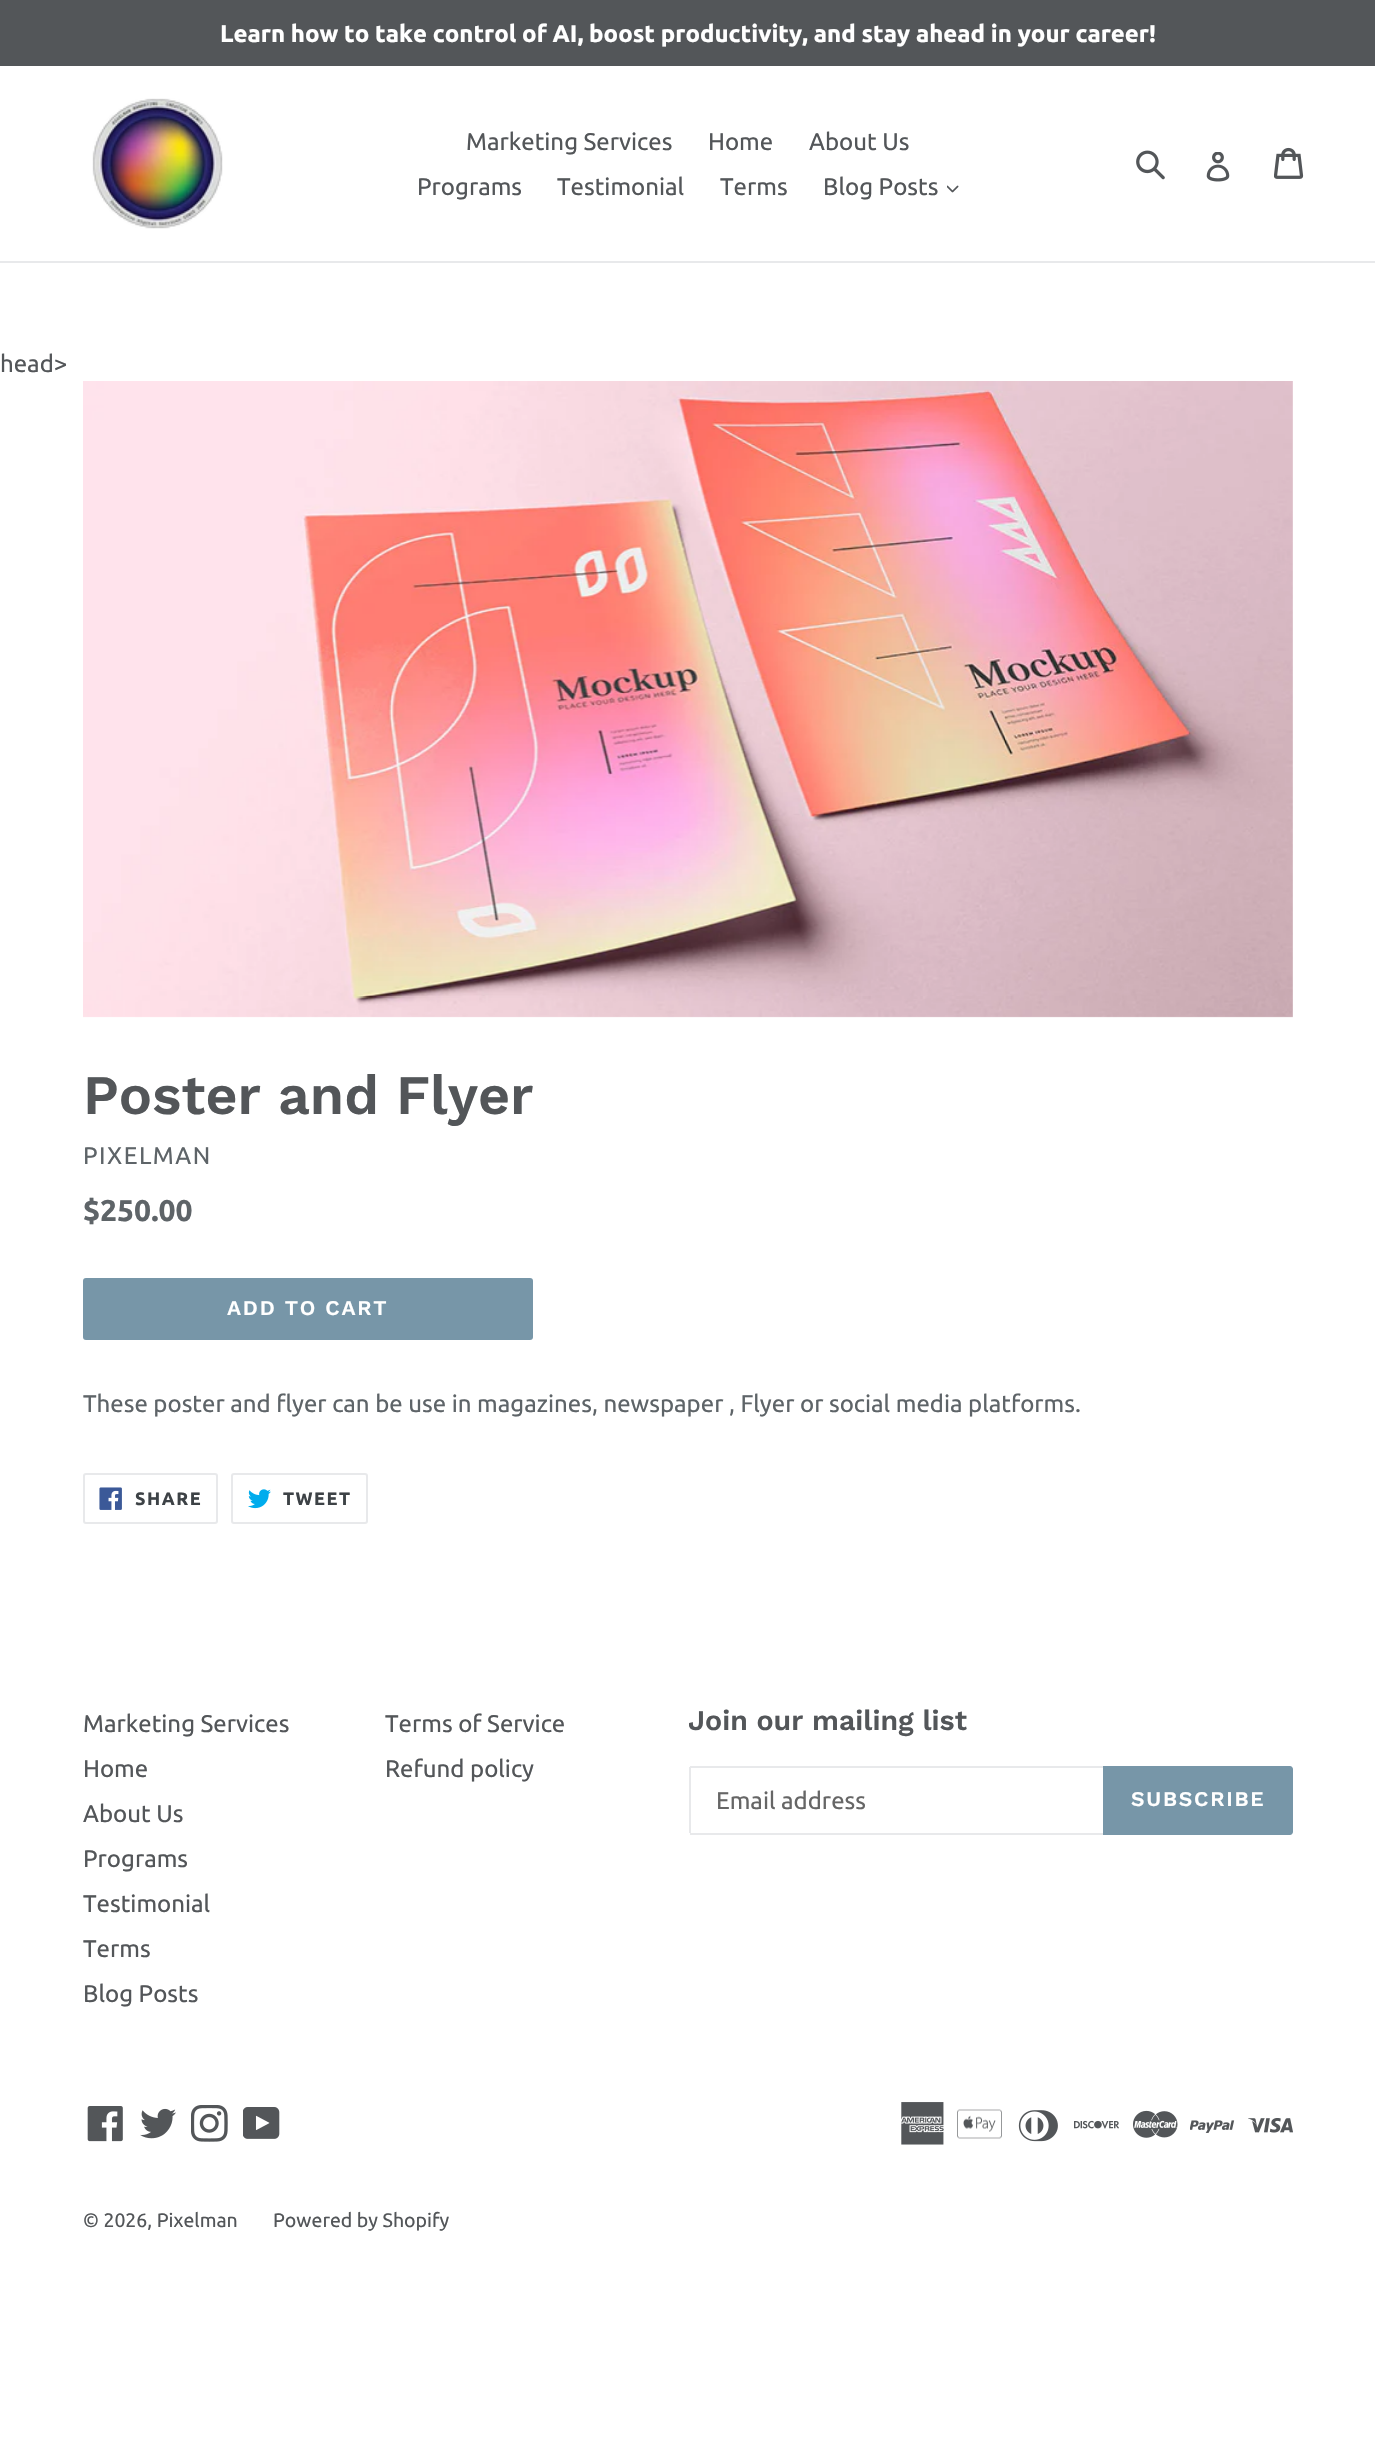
static SkFont makeFont(const char* family, int weight, float size, bool italic = false) {
  SkFontStyle style(weight, SkFontStyle::kNormal_Width,
    italic ? SkFontStyle::kItalic_Slant : SkFontStyle::kUpright_Slant);
  SkFont result(fontMgr->matchFamilyStyle(family, style), size);
  result.setSubpixel(true);
  return result;
}

static void text(SkCanvas* c, const char* s, float x, float y, const SkFont& font, SkColor color) {
  SkPaint ink(SkColor4f::FromColor(color));
  ink.setAntiAlias(true);
  c->drawString(s, x, y, font, ink);
}

static void spacedText(SkCanvas* c, const char* s, float x, float y, const SkFont& font, const SkPaint& ink, float letter, float word) {
  std::vector<SkGlyphID> glyphs(font.countText(s, strlen(s), SkTextEncoding::kUTF8));
  std::vector<float> xs(glyphs.size());
  font.textToGlyphs(s, strlen(s), SkTextEncoding::kUTF8, glyphs);
  font.getXPos(glyphs, xs, x);
  float extra = 0;
  for (size_t i = 0; i < glyphs.size(); i++) {
    xs[i] += extra;
    extra += letter + word * (glyphs[i] == font.unicharToGlyph(' '));
  }
  c->drawTextBlob(SkTextBlob::MakeFromPosHGlyphs(glyphs, xs, y, font), 0, 0, ink);
}

static void box(SkCanvas* c, float l, float t, float r, float b, SkColor color) {
  SkPaint ink(SkColor4f::FromColor(color));
  ink.setAntiAlias(true);
  c->drawRect(SkRect::MakeLTRB(l, t, r, b), ink);
}

static void roundBox(SkCanvas* c, float l, float t, float r, float b, float radius, SkColor color) {
  SkPaint ink(SkColor4f::FromColor(color));
  ink.setAntiAlias(true);
  c->drawRoundRect(SkRect::MakeLTRB(l, t, r, b), radius, radius, ink);
}

static void picture(SkCanvas* c, const char* path, float l, float t, float r, float b) {
  auto image = SkImages::DeferredFromEncodedData(SkData::MakeFromFileName(path));
  c->drawImageRect(image, SkRect::MakeLTRB(l, t, r, b), SkSamplingOptions());
}

void draw(SkCanvas* c) {
  SkPaint paint;
  paint.setAntiAlias(true);
  c->clear(0xffffffff);
  box(c, 0, 0, 1375, 66, 0xff535659);
  SkFont face1 = makeFont("Ubuntu", 700, 24);
  text(c, "Learn how to take control of AI, boost productivity, and stay ahead in your career!", 220, 42, face1, 0xffffffff);
  box(c, 0, 261, 1375, 263, 0xffe8e9eb);
  picture(c, "img_01.png", 92, 98, 223, 229);
  SkFont face2 = makeFont("Ubuntu", 400, 24);
  text(c, "Marketing Services", 466, 150, face2, 0xff535659);
  text(c, "Home", 708, 150, face2, 0xff535659);
  text(c, "About Us", 809, 150, face2, 0xff535659);
  text(c, "Programs", 417, 195, face2, 0xff535659);
  text(c, "Testimonial", 557, 195, face2, 0xff535659);
  text(c, "Terms", 720, 195, face2, 0xff535659);
  text(c, "Blog Posts", 823, 195, face2, 0xff535659);
  picture(c, "img_02.png", 947, 185, 959, 193);
  picture(c, "img_03.png", 1136, 150, 1165, 180);
  picture(c, "img_04.png", 1206, 152, 1230, 182);
  picture(c, "img_05.png", 1274, 147, 1304, 179);
  text(c, "head>", 0, 372, face2, 0xff535659);
  picture(c, "img_06.png", 83, 381, 1293, 1018);
  SkFont face3 = makeFont("Work Sans", 600, 55.5f);
  text(c, "Poster and Flyer", 83, 1114, face3, 0xff535659);
  paint.setColor(0xff5e6468);
  spacedText(c, "PIXELMAN", 83, 1164, face2, paint, 1.5f, 0);
  SkFont face4 = makeFont("Ubuntu", 700, 30);
  text(c, "$250.00", 83, 1221, face4, 0xff5e6468);
  roundBox(c, 83, 1278, 533, 1340, 3, 0xff7796a8);
  SkFont face5 = makeFont("Work Sans", 600, 21);
  paint.setColor(0xffffffff);
  spacedText(c, "ADD TO CART", 227, 1315, face5, paint, 1.75f, 0);
  text(c, "These poster and flyer can be use in magazines, newspaper , Flyer or social media platforms.", 83, 1412, face2, 0xff5e6468);
  paint.setStyle(SkPaint::kStroke_Style);
  paint.setStrokeWidth(2);
  paint.setColor(0xffe8e9eb);
  c->drawRoundRect(SkRect::MakeLTRB(84, 1474, 217, 1523), 2, 2, paint);
  picture(c, "img_07.png", 99, 1487, 122, 1510);
  SkFont face6 = makeFont("Ubuntu", 700, 18);
  paint.setStyle(SkPaint::kFill_Style);
  paint.setColor(0xff3d4246);
  spacedText(c, "SHARE", 135, 1505, face6, paint, 1.5f, 0);
  paint.setStyle(SkPaint::kStroke_Style);
  paint.setColor(0xffe8e9eb);
  c->drawRoundRect(SkRect::MakeLTRB(232, 1474, 367, 1523), 2, 2, paint);
  picture(c, "img_08.png", 248, 1489, 271, 1509);
  paint.setStyle(SkPaint::kFill_Style);
  paint.setColor(0xff3d4246);
  spacedText(c, "TWEET", 283, 1505, face6, paint, 1.5f, 0);
  text(c, "Marketing Services", 83, 1732, face2, 0xff535659);
  text(c, "Home", 83, 1777, face2, 0xff535659);
  text(c, "About Us", 83, 1822, face2, 0xff535659);
  text(c, "Programs", 83, 1867, face2, 0xff535659);
  text(c, "Testimonial", 83, 1912, face2, 0xff535659);
  text(c, "Terms", 83, 1957, face2, 0xff535659);
  text(c, "Blog Posts", 83, 2002, face2, 0xff535659);
  text(c, "Terms of Service", 385, 1732, face2, 0xff535659);
  text(c, "Refund policy", 385, 1777, face2, 0xff535659);
  SkFont face7 = makeFont("Work Sans", 600, 28.5f);
  text(c, "Join our mailing list", 688, 1730, face7, 0xff535659);
  box(c, 690, 1766, 1103, 1768, 0xffe8e9eb);
  box(c, 690, 1833, 1103, 1835, 0xffe8e9eb);
  box(c, 689, 1767, 691, 1833, 0xffe8e9eb);
  text(c, "Email address", 716, 1809, face2, 0xff666666);
  paint.setColor(0xff7796a8);
  c->drawPath(SkPathBuilder().moveTo(1103, 1766).lineTo(1290, 1766).cubicTo(1291.5f, 1766, 1293, 1767.5f, 1293, 1769).lineTo(1293, 1832).cubicTo(1293, 1833.5f, 1291.5f, 1835, 1290, 1835).lineTo(1103, 1835).close().detach(), paint);
  paint.setColor(0xffffffff);
  spacedText(c, "SUBSCRIBE", 1131, 1806, face5, paint, 1.75f, 0);
  picture(c, "img_09.png", 87, 2106, 123, 2142);
  picture(c, "img_10.png", 140, 2108, 176, 2139);
  picture(c, "img_11.png", 191, 2105, 228, 2142);
  picture(c, "img_12.png", 243, 2107, 280, 2139);
  picture(c, "img_13.png", 901, 2102, 944, 2145);
  picture(c, "img_14.png", 957, 2109, 1002, 2139);
  picture(c, "img_15.png", 1018, 2110, 1058, 2142);
  picture(c, "img_16.png", 1074, 2120, 1119, 2129);
  picture(c, "img_17.png", 1133, 2110, 1178, 2138);
  picture(c, "img_18.png", 1190, 2120, 1235, 2133);
  picture(c, "img_19.png", 1248, 2118, 1293, 2133);
  SkFont face8 = makeFont("Ubuntu", 400, 19.5f);
  text(c, "© 2026, Pixelman", 83, 2227, face8, 0xff535659);
  text(c, "Powered by Shopify", 273, 2227, face8, 0xff535659);
}
